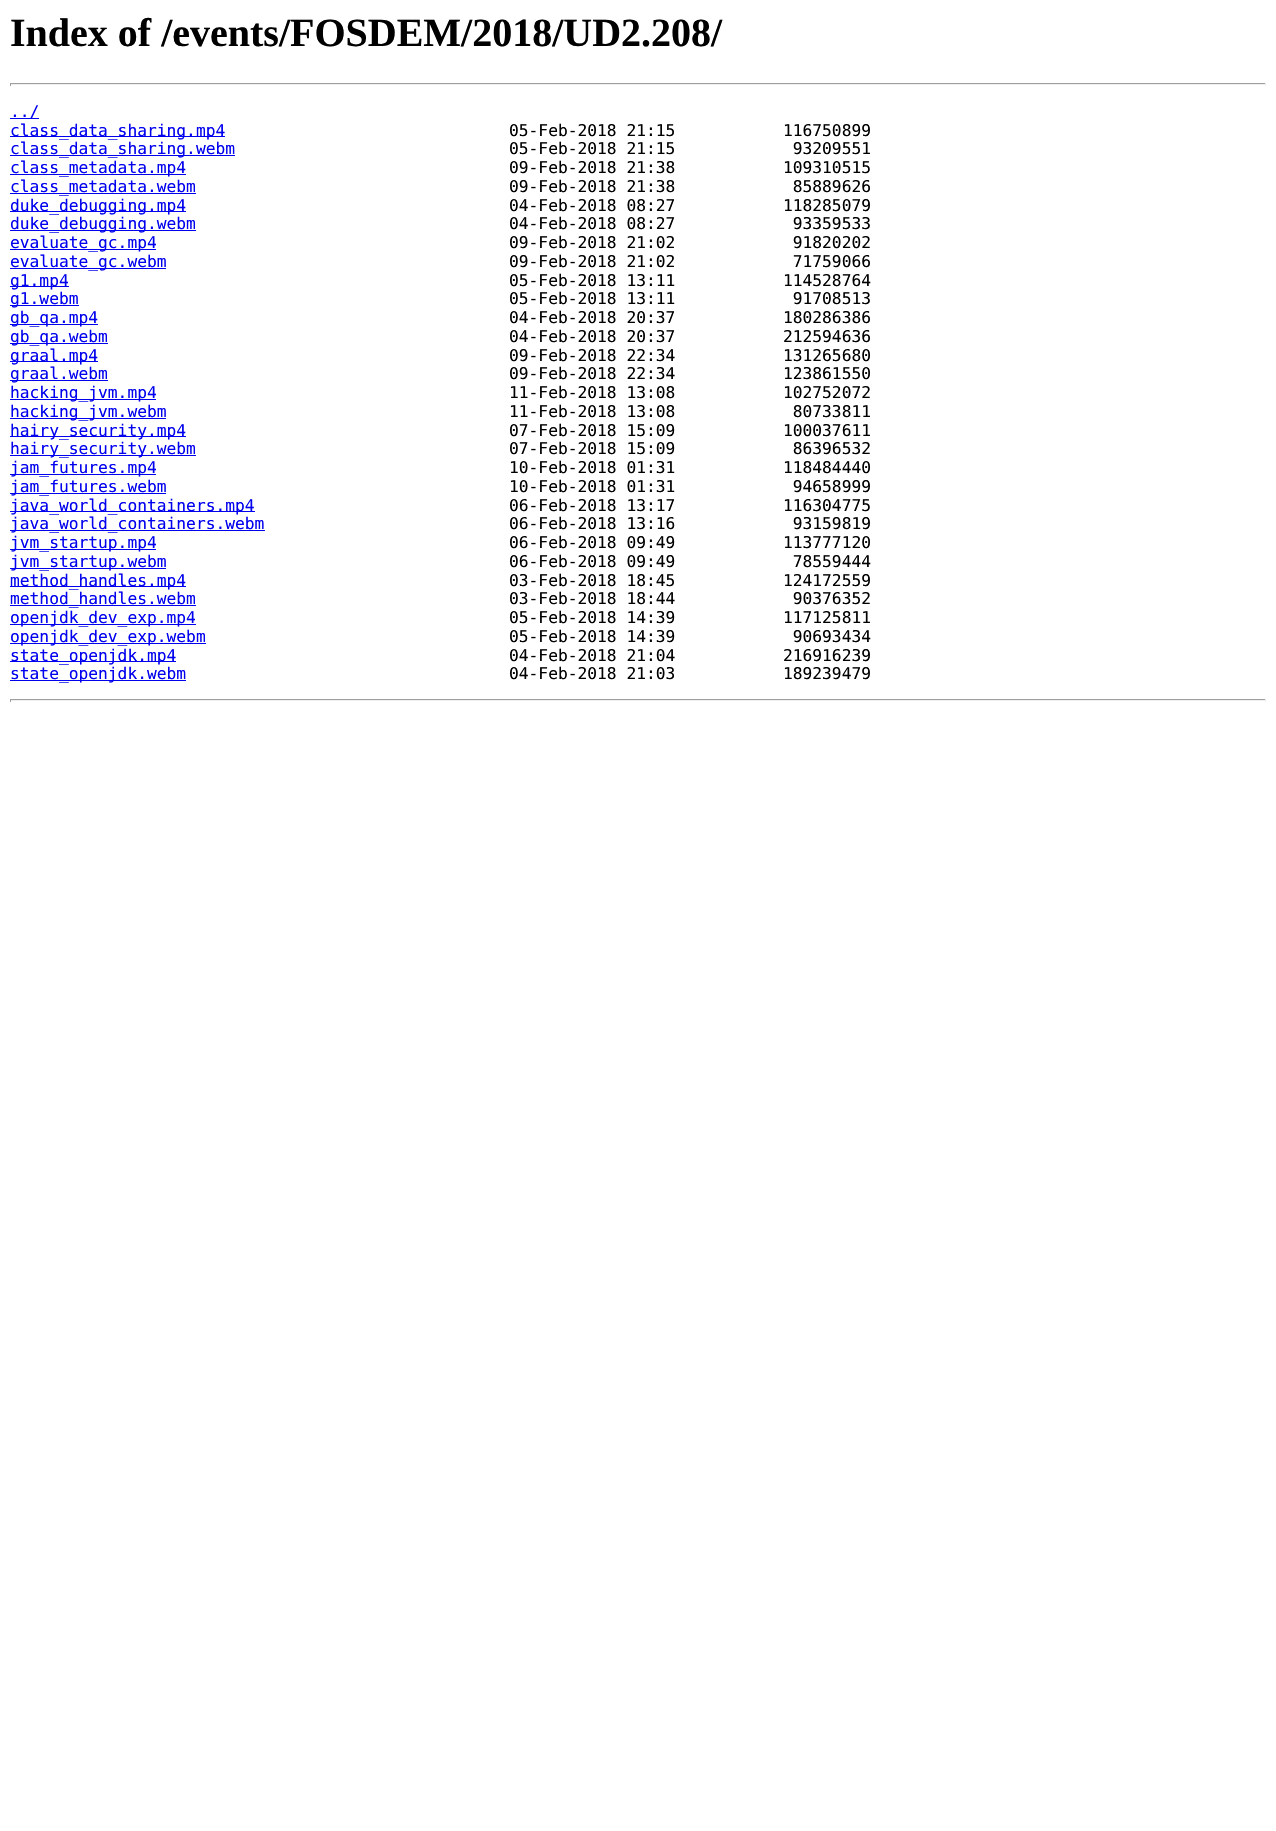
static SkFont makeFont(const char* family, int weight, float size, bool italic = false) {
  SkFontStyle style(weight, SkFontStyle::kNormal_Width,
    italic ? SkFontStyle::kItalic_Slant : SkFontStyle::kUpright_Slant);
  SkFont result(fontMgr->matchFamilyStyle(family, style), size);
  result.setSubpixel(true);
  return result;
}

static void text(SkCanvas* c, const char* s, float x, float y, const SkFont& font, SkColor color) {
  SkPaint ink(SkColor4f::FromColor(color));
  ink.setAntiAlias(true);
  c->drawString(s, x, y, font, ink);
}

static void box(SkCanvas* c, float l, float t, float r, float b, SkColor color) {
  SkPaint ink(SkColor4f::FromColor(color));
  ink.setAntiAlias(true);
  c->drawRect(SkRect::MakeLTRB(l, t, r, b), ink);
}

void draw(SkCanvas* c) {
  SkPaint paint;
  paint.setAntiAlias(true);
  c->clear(0xffffffff);
  SkFont face1 = makeFont("Liberation Serif", 700, 40);
  text(c, "Index of /events/FOSDEM/2018/UD2.208/", 10, 46, face1, 0xff000000);
  box(c, 10, 83, 1266, 84, 0xff9f9f9f);
  box(c, 1265, 83, 1266, 86, 0xffeeeeee);
  box(c, 10, 84, 1266, 85, 0xffeeeeee);
  box(c, 10, 83, 11, 86, 0xff9f9f9f);
  box(c, 10, 118, 39, 119, 0xff0000ee);
  SkFont face2 = makeFont("DejaVu Sans Mono", 400, 16.25f);
  text(c, "../", 10, 117, face2, 0xff0000ee);
  box(c, 10, 136, 225, 137, 0xff0000ee);
  text(c, "class_data_sharing.mp4", 10, 136, face2, 0xff0000ee);
  text(c, "05-Feb-2018 21:15           116750899", 509, 136, face2, 0xff000000);
  box(c, 10, 155, 235, 156, 0xff0000ee);
  text(c, "class_data_sharing.webm", 10, 154, face2, 0xff0000ee);
  text(c, "05-Feb-2018 21:15            93209551", 509, 154, face2, 0xff000000);
  box(c, 10, 174, 186, 175, 0xff0000ee);
  text(c, "class_metadata.mp4", 10, 173, face2, 0xff0000ee);
  text(c, "09-Feb-2018 21:38           109310515", 509, 173, face2, 0xff000000);
  box(c, 10, 193, 196, 194, 0xff0000ee);
  text(c, "class_metadata.webm", 10, 192, face2, 0xff0000ee);
  text(c, "09-Feb-2018 21:38            85889626", 509, 192, face2, 0xff000000);
  box(c, 10, 211, 186, 212, 0xff0000ee);
  text(c, "duke_debugging.mp4", 10, 211, face2, 0xff0000ee);
  text(c, "04-Feb-2018 08:27           118285079", 509, 211, face2, 0xff000000);
  box(c, 10, 230, 196, 231, 0xff0000ee);
  text(c, "duke_debugging.webm", 10, 229, face2, 0xff0000ee);
  text(c, "04-Feb-2018 08:27            93359533", 509, 229, face2, 0xff000000);
  box(c, 10, 249, 156, 250, 0xff0000ee);
  text(c, "evaluate_gc.mp4", 10, 248, face2, 0xff0000ee);
  text(c, "09-Feb-2018 21:02            91820202", 509, 248, face2, 0xff000000);
  box(c, 10, 268, 166, 269, 0xff0000ee);
  text(c, "evaluate_gc.webm", 10, 267, face2, 0xff0000ee);
  text(c, "09-Feb-2018 21:02            71759066", 509, 267, face2, 0xff000000);
  box(c, 10, 286, 69, 287, 0xff0000ee);
  text(c, "g1.mp4", 10, 286, face2, 0xff0000ee);
  text(c, "05-Feb-2018 13:11           114528764", 509, 286, face2, 0xff000000);
  box(c, 10, 305, 79, 306, 0xff0000ee);
  text(c, "g1.webm", 10, 304, face2, 0xff0000ee);
  text(c, "05-Feb-2018 13:11            91708513", 509, 304, face2, 0xff000000);
  box(c, 10, 324, 98, 325, 0xff0000ee);
  text(c, "gb_qa.mp4", 10, 323, face2, 0xff0000ee);
  text(c, "04-Feb-2018 20:37           180286386", 509, 323, face2, 0xff000000);
  box(c, 10, 343, 108, 344, 0xff0000ee);
  text(c, "gb_qa.webm", 10, 342, face2, 0xff0000ee);
  text(c, "04-Feb-2018 20:37           212594636", 509, 342, face2, 0xff000000);
  box(c, 10, 361, 98, 362, 0xff0000ee);
  text(c, "graal.mp4", 10, 361, face2, 0xff0000ee);
  text(c, "09-Feb-2018 22:34           131265680", 509, 361, face2, 0xff000000);
  box(c, 10, 380, 108, 381, 0xff0000ee);
  text(c, "graal.webm", 10, 379, face2, 0xff0000ee);
  text(c, "09-Feb-2018 22:34           123861550", 509, 379, face2, 0xff000000);
  box(c, 10, 399, 156, 400, 0xff0000ee);
  text(c, "hacking_jvm.mp4", 10, 398, face2, 0xff0000ee);
  text(c, "11-Feb-2018 13:08           102752072", 509, 398, face2, 0xff000000);
  box(c, 10, 418, 166, 419, 0xff0000ee);
  text(c, "hacking_jvm.webm", 10, 417, face2, 0xff0000ee);
  text(c, "11-Feb-2018 13:08            80733811", 509, 417, face2, 0xff000000);
  box(c, 10, 436, 186, 437, 0xff0000ee);
  text(c, "hairy_security.mp4", 10, 436, face2, 0xff0000ee);
  text(c, "07-Feb-2018 15:09           100037611", 509, 436, face2, 0xff000000);
  box(c, 10, 455, 196, 456, 0xff0000ee);
  text(c, "hairy_security.webm", 10, 454, face2, 0xff0000ee);
  text(c, "07-Feb-2018 15:09            86396532", 509, 454, face2, 0xff000000);
  box(c, 10, 474, 156, 475, 0xff0000ee);
  text(c, "jam_futures.mp4", 10, 473, face2, 0xff0000ee);
  text(c, "10-Feb-2018 01:31           118484440", 509, 473, face2, 0xff000000);
  box(c, 10, 493, 166, 494, 0xff0000ee);
  text(c, "jam_futures.webm", 10, 492, face2, 0xff0000ee);
  text(c, "10-Feb-2018 01:31            94658999", 509, 492, face2, 0xff000000);
  box(c, 10, 511, 255, 512, 0xff0000ee);
  text(c, "java_world_containers.mp4", 10, 511, face2, 0xff0000ee);
  text(c, "06-Feb-2018 13:17           116304775", 509, 511, face2, 0xff000000);
  box(c, 10, 530, 265, 531, 0xff0000ee);
  text(c, "java_world_containers.webm", 10, 529, face2, 0xff0000ee);
  text(c, "06-Feb-2018 13:16            93159819", 509, 529, face2, 0xff000000);
  box(c, 10, 549, 156, 550, 0xff0000ee);
  text(c, "jvm_startup.mp4", 10, 548, face2, 0xff0000ee);
  text(c, "06-Feb-2018 09:49           113777120", 509, 548, face2, 0xff000000);
  box(c, 10, 568, 166, 569, 0xff0000ee);
  text(c, "jvm_startup.webm", 10, 567, face2, 0xff0000ee);
  text(c, "06-Feb-2018 09:49            78559444", 509, 567, face2, 0xff000000);
  box(c, 10, 586, 186, 587, 0xff0000ee);
  text(c, "method_handles.mp4", 10, 586, face2, 0xff0000ee);
  text(c, "03-Feb-2018 18:45           124172559", 509, 586, face2, 0xff000000);
  box(c, 10, 605, 196, 606, 0xff0000ee);
  text(c, "method_handles.webm", 10, 604, face2, 0xff0000ee);
  text(c, "03-Feb-2018 18:44            90376352", 509, 604, face2, 0xff000000);
  box(c, 10, 624, 196, 625, 0xff0000ee);
  text(c, "openjdk_dev_exp.mp4", 10, 623, face2, 0xff0000ee);
  text(c, "05-Feb-2018 14:39           117125811", 509, 623, face2, 0xff000000);
  box(c, 10, 643, 206, 644, 0xff0000ee);
  text(c, "openjdk_dev_exp.webm", 10, 642, face2, 0xff0000ee);
  text(c, "05-Feb-2018 14:39            90693434", 509, 642, face2, 0xff000000);
  box(c, 10, 661, 176, 662, 0xff0000ee);
  text(c, "state_openjdk.mp4", 10, 661, face2, 0xff0000ee);
  text(c, "04-Feb-2018 21:04           216916239", 509, 661, face2, 0xff000000);
  box(c, 10, 680, 186, 681, 0xff0000ee);
  text(c, "state_openjdk.webm", 10, 679, face2, 0xff0000ee);
  text(c, "04-Feb-2018 21:03           189239479", 509, 679, face2, 0xff000000);
  box(c, 10, 699, 1266, 700, 0xff9f9f9f);
  box(c, 1265, 699, 1266, 702, 0xffeeeeee);
  box(c, 10, 700, 1266, 701, 0xffeeeeee);
  box(c, 10, 699, 11, 702, 0xff9f9f9f);
}
